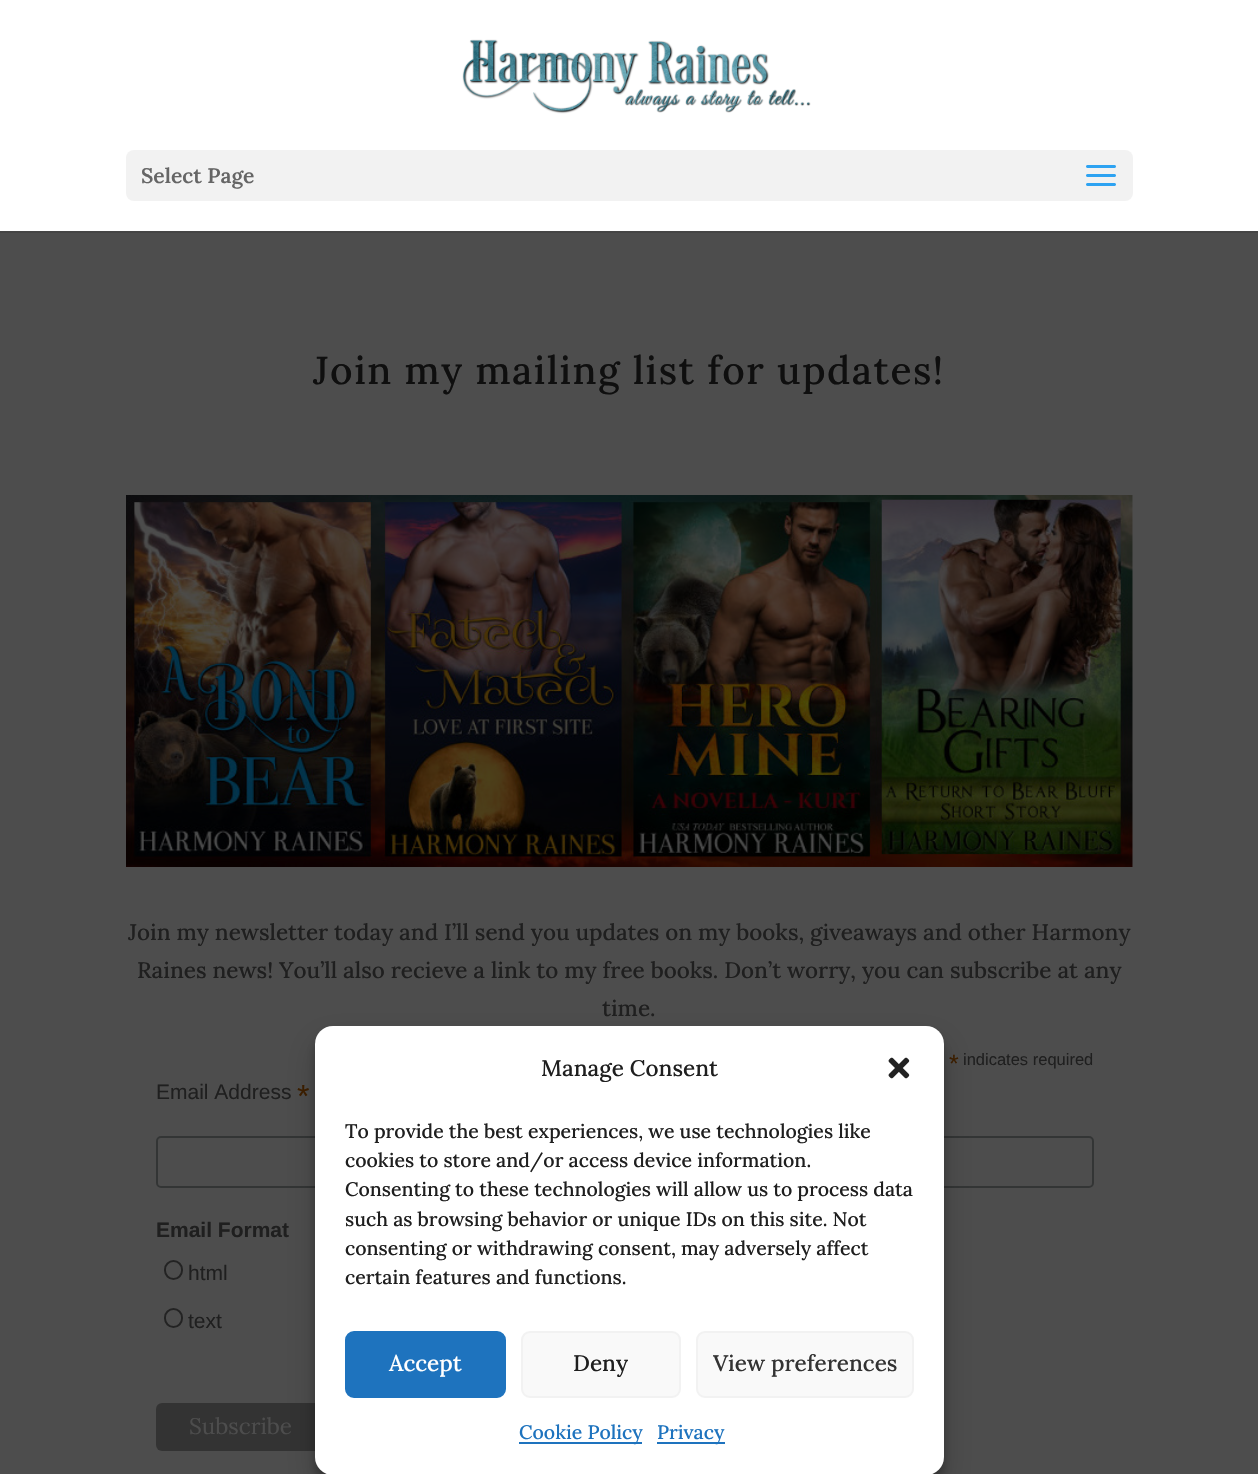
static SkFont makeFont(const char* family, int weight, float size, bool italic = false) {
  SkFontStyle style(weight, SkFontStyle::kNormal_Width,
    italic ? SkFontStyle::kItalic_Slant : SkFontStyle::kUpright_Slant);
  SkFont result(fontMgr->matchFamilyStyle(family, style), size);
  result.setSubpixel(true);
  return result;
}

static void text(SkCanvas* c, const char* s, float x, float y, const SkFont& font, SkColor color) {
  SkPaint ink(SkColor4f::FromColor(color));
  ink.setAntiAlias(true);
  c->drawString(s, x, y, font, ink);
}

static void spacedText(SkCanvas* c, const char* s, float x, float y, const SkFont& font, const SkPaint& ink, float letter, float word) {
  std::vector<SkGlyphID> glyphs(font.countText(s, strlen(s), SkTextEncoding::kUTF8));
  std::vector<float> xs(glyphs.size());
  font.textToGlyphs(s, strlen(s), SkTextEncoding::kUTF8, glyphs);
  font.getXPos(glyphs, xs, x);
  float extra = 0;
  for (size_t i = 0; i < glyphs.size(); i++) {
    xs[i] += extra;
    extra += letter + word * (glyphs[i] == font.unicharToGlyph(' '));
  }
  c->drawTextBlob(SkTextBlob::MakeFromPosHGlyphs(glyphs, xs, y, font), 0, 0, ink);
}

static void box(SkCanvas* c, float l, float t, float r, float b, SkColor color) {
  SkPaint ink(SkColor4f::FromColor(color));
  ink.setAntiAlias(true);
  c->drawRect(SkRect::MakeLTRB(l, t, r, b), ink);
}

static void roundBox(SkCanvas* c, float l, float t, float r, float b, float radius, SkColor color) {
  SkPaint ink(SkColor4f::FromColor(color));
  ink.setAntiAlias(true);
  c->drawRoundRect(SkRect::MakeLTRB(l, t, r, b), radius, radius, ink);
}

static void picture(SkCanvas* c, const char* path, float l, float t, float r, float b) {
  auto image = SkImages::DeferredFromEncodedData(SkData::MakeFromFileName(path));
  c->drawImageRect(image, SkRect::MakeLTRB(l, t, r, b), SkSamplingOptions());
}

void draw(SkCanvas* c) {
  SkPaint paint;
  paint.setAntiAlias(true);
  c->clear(0xff4d4d4d);
  paint.setColor(0xff454545);
  c->drawPath(SkPathBuilder().moveTo(0, 231).lineTo(0, 233).lineTo(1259, 233).lineTo(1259, 2).lineTo(1258, 2).lineTo(1258, 231).close().detach(), paint);
  box(c, 0, 0, 1258, 231, 0xffffffff);
  picture(c, "img_01.png", 462, 39, 811, 114);
  roundBox(c, 126, 150, 1133, 201, 8, 0xfff2f2f2);
  SkFont face1 = makeFont("Lora", 600, 21);
  text(c, "Select Page", 141, 183, face1, 0xff666666);
  picture(c, "img_02.png", 1086, 165, 1116, 186);
  SkFont face2 = makeFont("Lora", 500, 39);
  paint.setColor(0xff0f0f0f);
  spacedText(c, "Join my mailing list for updates!", 313, 384, face2, paint, 1.5f, 0);
  picture(c, "img_03.png", 126, 495, 1133, 867);
  SkFont face3 = makeFont("Lora", 500, 22.5f);
  text(c, "Join my newsletter today and I’ll send you updates on my books, giveaways and other Harmony", 128, 940, face3, 0xff1f1f1f);
  text(c, "Raines news! You’ll also recieve a link to my free books. Don’t worry, you can subscribe at any", 137, 978, face3, 0xff1f1f1f);
  text(c, "time.", 602, 1016, face3, 0xff1f1f1f);
  SkFont face4 = makeFont("Liberation Sans", 400, 25);
  text(c, "*", 949, 1072, face4, 0xff3d1f00);
  SkFont face5 = makeFont("Liberation Sans", 400, 16.5f);
  text(c, "indicates required", 963, 1065, face5, 0xff1f1f1f);
  SkFont face6 = makeFont("Liberation Sans", 400, 21);
  text(c, "Email Address", 156, 1099, face6, 0xff1f1f1f);
  SkFont face7 = makeFont("Liberation Sans", 400, 32);
  text(c, "*", 297, 1107, face7, 0xff3d1f00);
  paint.setStyle(SkPaint::kStroke_Style);
  paint.setStrokeWidth(2);
  paint.setColor(0xff333535);
  c->drawRoundRect(SkRect::MakeLTRB(157, 1137, 1093, 1187), 4, 4, paint);
  SkFont face8 = makeFont("Liberation Sans", 700, 21);
  text(c, "Email Format", 156, 1237, face8, 0xff1f1f1f);
  paint.setColor(0xff232323);
  c->drawRoundRect(SkRect::MakeLTRB(165, 1261, 182, 1279), 8.5f, 8.5f, paint);
  text(c, "html", 188, 1280, face6, 0xff1f1f1f);
  c->drawRoundRect(SkRect::MakeLTRB(165, 1309, 182, 1327), 8.5f, 8.5f, paint);
  text(c, "text", 188, 1328, face6, 0xff1f1f1f);
  roundBox(c, 156, 1403, 326, 1451, 6, 0xff333333);
  SkFont face9 = makeFont("Lora", 400, 22.5f);
  text(c, "Subscribe", 189, 1434, face9, 0xff4d4d4d);
  paint.setStyle(SkPaint::kFill_Style);
  paint.setColor(0x3b000000);
  paint.setMaskFilter(SkMaskFilter::MakeBlur(kNormal_SkBlurStyle, 4.5f));
  c->drawRoundRect(SkRect::MakeLTRB(315, 1035, 944, 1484), 18, 18, paint);
  paint.setMaskFilter(nullptr);
  paint.setColor(0x30000000);
  paint.setMaskFilter(SkMaskFilter::MakeBlur(kNormal_SkBlurStyle, 15));
  c->drawRoundRect(SkRect::MakeLTRB(315, 1041, 944, 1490), 18, 18, paint);
  paint.setMaskFilter(nullptr);
  roundBox(c, 315, 1026, 944, 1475, 18, 0xffffffff);
  text(c, "Manage Consent", 541, 1076, face3, 0xff1f1f1f);
  picture(c, "img_04.png", 888, 1057, 910, 1079);
  SkFont face10 = makeFont("Lora", 500, 19.5f);
  text(c, "To provide the best experiences, we use technologies like", 345, 1138, face10, 0xff1f1f1f);
  text(c, "cookies to store and/or access device information.", 345, 1167, face10, 0xff1f1f1f);
  text(c, "Consenting to these technologies will allow us to process data", 345, 1196, face10, 0xff1f1f1f);
  text(c, "such as browsing behavior or unique IDs on this site. Not", 345, 1226, face10, 0xff1f1f1f);
  text(c, "consenting or withdrawing consent, may adversely affect", 345, 1255, face10, 0xff1f1f1f);
  text(c, "certain features and functions.", 345, 1284, face10, 0xff1f1f1f);
  paint.setColor(0xff1e73be);
  c->drawRoundRect(SkRect::MakeLTRB(346, 1332, 505, 1397), 8, 8, paint);
  paint.setStyle(SkPaint::kStroke_Style);
  c->drawRoundRect(SkRect::MakeLTRB(346, 1332, 505, 1397), 8, 8, paint);
  text(c, "Accept", 389, 1371, face3, 0xffffffff);
  paint.setStyle(SkPaint::kFill_Style);
  paint.setColor(0xfff9f9f9);
  c->drawRoundRect(SkRect::MakeLTRB(522, 1332, 680, 1397), 8, 8, paint);
  paint.setStyle(SkPaint::kStroke_Style);
  paint.setColor(0xfff2f2f2);
  c->drawRoundRect(SkRect::MakeLTRB(522, 1332, 680, 1397), 8, 8, paint);
  text(c, "Deny", 573, 1371, face3, 0xff1f1f1f);
  paint.setStyle(SkPaint::kFill_Style);
  paint.setColor(0xfff9f9f9);
  c->drawRoundRect(SkRect::MakeLTRB(697, 1332, 913, 1397), 8, 8, paint);
  paint.setStyle(SkPaint::kStroke_Style);
  paint.setColor(0xfff2f2f2);
  c->drawRoundRect(SkRect::MakeLTRB(697, 1332, 913, 1397), 8, 8, paint);
  text(c, "View preferences", 713, 1371, face3, 0xff333333);
  box(c, 519, 1442, 642, 1444, 0xff1e73be);
  text(c, "Cookie Policy", 519, 1439, face10, 0xff1e73be);
  box(c, 657, 1442, 725, 1444, 0xff1e73be);
  text(c, "Privacy", 657, 1439, face10, 0xff1e73be);
}
